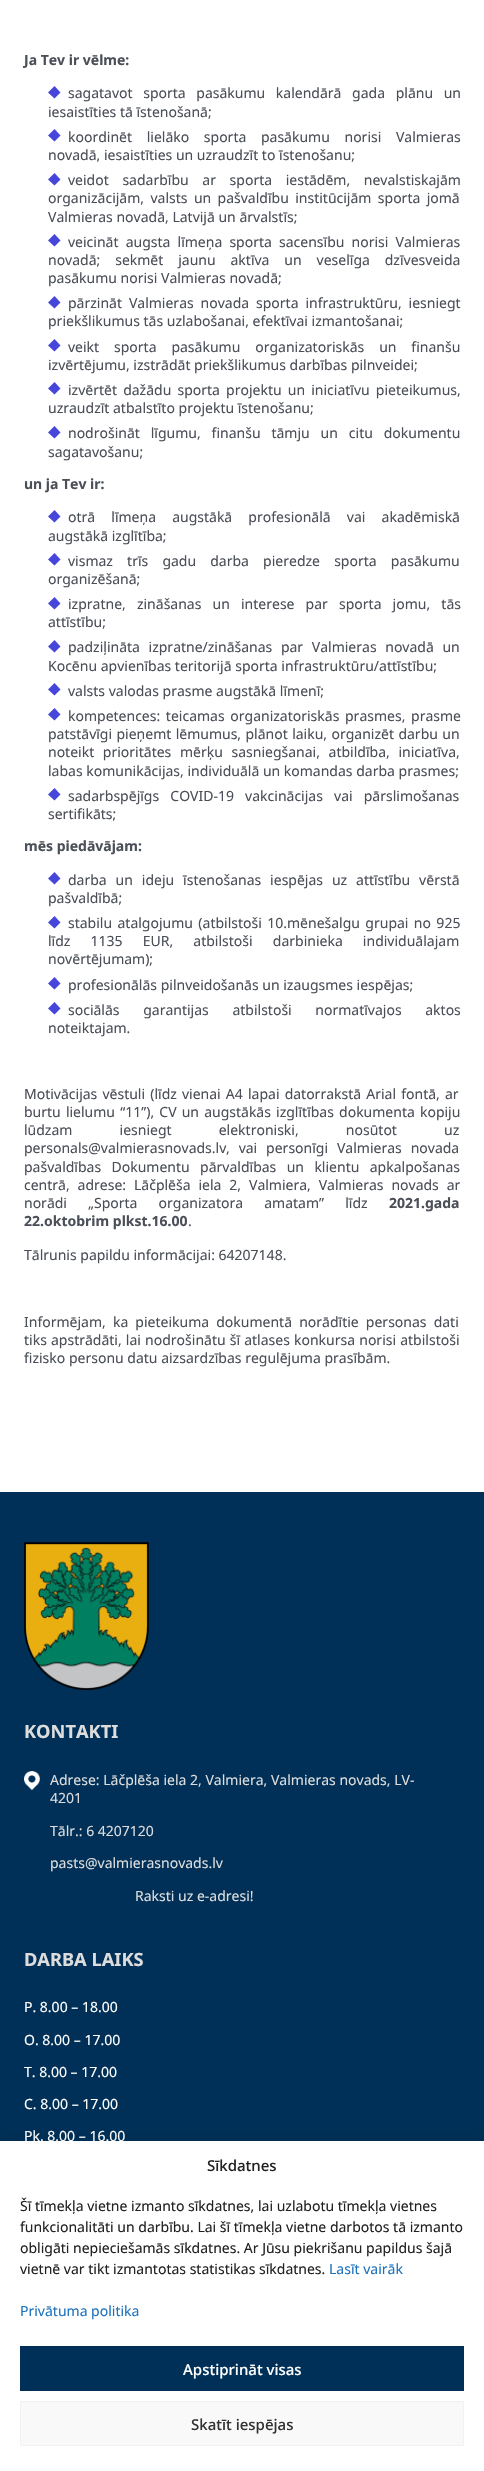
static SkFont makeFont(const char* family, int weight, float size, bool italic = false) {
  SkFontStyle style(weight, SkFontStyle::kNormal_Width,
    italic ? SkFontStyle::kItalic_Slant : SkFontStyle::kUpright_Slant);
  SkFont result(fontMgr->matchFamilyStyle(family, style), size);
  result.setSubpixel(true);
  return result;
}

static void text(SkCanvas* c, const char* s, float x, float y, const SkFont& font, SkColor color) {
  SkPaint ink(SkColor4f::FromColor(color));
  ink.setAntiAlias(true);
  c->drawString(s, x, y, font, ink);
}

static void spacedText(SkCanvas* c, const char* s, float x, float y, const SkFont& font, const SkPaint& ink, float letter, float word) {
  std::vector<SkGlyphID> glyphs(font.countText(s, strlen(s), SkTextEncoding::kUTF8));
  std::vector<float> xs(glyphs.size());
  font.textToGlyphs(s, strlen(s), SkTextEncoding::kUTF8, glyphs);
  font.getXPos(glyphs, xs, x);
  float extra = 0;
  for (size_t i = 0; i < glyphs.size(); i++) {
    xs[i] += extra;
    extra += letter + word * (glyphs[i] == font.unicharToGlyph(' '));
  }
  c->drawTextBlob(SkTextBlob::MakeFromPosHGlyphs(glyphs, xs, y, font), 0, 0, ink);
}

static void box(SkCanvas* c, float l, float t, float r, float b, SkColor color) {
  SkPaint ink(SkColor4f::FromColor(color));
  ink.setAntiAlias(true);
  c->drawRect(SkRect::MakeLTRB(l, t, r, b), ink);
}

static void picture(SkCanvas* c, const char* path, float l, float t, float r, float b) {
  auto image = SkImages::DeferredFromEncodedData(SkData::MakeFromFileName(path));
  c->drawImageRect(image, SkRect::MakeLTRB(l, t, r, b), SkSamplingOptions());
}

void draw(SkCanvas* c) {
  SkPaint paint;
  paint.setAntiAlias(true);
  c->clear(0xffffffff);
  SkFont face1 = makeFont("Noto Sans", 700, 14);
  text(c, "Ja Tev ir vēlme:", 24, 65, face1, 0xff4b4f58);
  paint.setColor(0xff4646db);
  c->drawPath(SkPathBuilder().moveTo(54.5f, 86).lineTo(48, 92.5f).lineTo(54.5f, 98.5f).lineTo(60.5f, 92.5f).close().detach(), paint);
  SkFont face2 = makeFont("Noto Sans", 400, 14);
  paint.setColor(0xff4b4f58);
  spacedText(c, "sagatavot sporta pasākumu kalendārā gada plānu un", 68, 98, face2, paint, 0, 7);
  text(c, "iesaistīties tā īstenošanā;", 48, 117, face2, 0xff4b4f58);
  paint.setColor(0xff4646db);
  c->drawPath(SkPathBuilder().moveTo(54.5f, 129).lineTo(48, 135.5f).lineTo(54.5f, 141.5f).lineTo(60.5f, 135.5f).close().detach(), paint);
  paint.setColor(0xff4b4f58);
  spacedText(c, "koordinēt lielāko sporta pasākumu norisi Valmieras", 68, 142, face2, paint, 0, 11);
  text(c, "novadā, iesaistīties un uzraudzīt to īstenošanu;", 48, 160, face2, 0xff4b4f58);
  paint.setColor(0xff4646db);
  c->drawPath(SkPathBuilder().moveTo(54.5f, 173).lineTo(48, 179.5f).lineTo(54.5f, 185.5f).lineTo(60.5f, 179.5f).close().detach(), paint);
  paint.setColor(0xff4b4f58);
  spacedText(c, "veidot sadarbību ar sporta iestādēm, nevalstiskajām", 68, 185, face2, paint, 0, 10);
  spacedText(c, "organizācijām, valsts un pašvaldību institūcijām sporta jomā", 48, 203, face2, paint, 0, 2.75f);
  text(c, "Valmieras novadā, Latvijā un ārvalstīs;", 48, 222, face2, 0xff4b4f58);
  paint.setColor(0xff4646db);
  c->drawPath(SkPathBuilder().moveTo(54.5f, 234).lineTo(48, 240.5f).lineTo(54.5f, 246.5f).lineTo(60.5f, 240.5f).close().detach(), paint);
  paint.setColor(0xff4b4f58);
  spacedText(c, "veicināt augsta līmeņa sporta sacensību norisi Valmieras", 68, 247, face2, paint, 0, 3.5f);
  spacedText(c, "novadā; sekmēt jaunu aktīva un veselīga dzīvesveida", 48, 265, face2, paint, 0, 11.25f);
  text(c, "pasākumu norisi Valmieras novadā;", 48, 283, face2, 0xff4b4f58);
  paint.setColor(0xff4646db);
  c->drawPath(SkPathBuilder().moveTo(54.5f, 296).lineTo(48, 302.5f).lineTo(54.5f, 308.5f).lineTo(60.5f, 302.5f).close().detach(), paint);
  paint.setColor(0xff4b4f58);
  spacedText(c, "pārzināt Valmieras novada sporta infrastruktūru, iesniegt", 68, 308, face2, paint, 0, 3.25f);
  text(c, "priekšlikumus tās uzlabošanai, efektīvai izmantošanai;", 48, 326, face2, 0xff4b4f58);
  paint.setColor(0xff4646db);
  c->drawPath(SkPathBuilder().moveTo(54.5f, 339).lineTo(48, 345.5f).lineTo(54.5f, 351.5f).lineTo(60.5f, 345.5f).close().detach(), paint);
  paint.setColor(0xff4b4f58);
  spacedText(c, "veikt sporta pasākumu organizatoriskās un finanšu", 68, 352, face2, paint, 0, 11.25f);
  text(c, "izvērtējumu, izstrādāt priekšlikumus darbības pilnveidei;", 48, 370, face2, 0xff4b4f58);
  paint.setColor(0xff4646db);
  c->drawPath(SkPathBuilder().moveTo(54.5f, 382).lineTo(48, 388.5f).lineTo(54.5f, 394.5f).lineTo(60.5f, 388.5f).close().detach(), paint);
  paint.setColor(0xff4b4f58);
  spacedText(c, "izvērtēt dažādu sporta projektu un iniciatīvu pieteikumus,", 68, 395, face2, paint, 0, 2.5f);
  text(c, "uzraudzīt atbalstīto projektu īstenošanu;", 48, 413, face2, 0xff4b4f58);
  paint.setColor(0xff4646db);
  c->drawPath(SkPathBuilder().moveTo(54.5f, 426).lineTo(48, 432.5f).lineTo(54.5f, 438.5f).lineTo(60.5f, 432.5f).close().detach(), paint);
  paint.setColor(0xff4b4f58);
  spacedText(c, "nodrošināt līgumu, finanšu tāmju un citu dokumentu", 68, 438, face2, paint, 0, 7.25f);
  text(c, "sagatavošanu;", 48, 457, face2, 0xff4b4f58);
  text(c, "un ja Tev ir:", 24, 489, face1, 0xff4b4f58);
  paint.setColor(0xff4646db);
  c->drawPath(SkPathBuilder().moveTo(54.5f, 510).lineTo(48, 516.5f).lineTo(54.5f, 522.5f).lineTo(60.5f, 516.5f).close().detach(), paint);
  paint.setColor(0xff4b4f58);
  spacedText(c, "otrā līmeņa augstākā profesionālā vai akadēmiskā", 68, 522, face2, paint, 0, 12.5f);
  text(c, "augstākā izglītība;", 48, 541, face2, 0xff4b4f58);
  paint.setColor(0xff4646db);
  c->drawPath(SkPathBuilder().moveTo(54.5f, 553).lineTo(48, 559.5f).lineTo(54.5f, 565.5f).lineTo(60.5f, 559.5f).close().detach(), paint);
  paint.setColor(0xff4b4f58);
  spacedText(c, "vismaz trīs gadu darba pieredze sporta pasākumu", 68, 566, face2, paint, 0, 10.5f);
  text(c, "organizēšanā;", 48, 584, face2, 0xff4b4f58);
  paint.setColor(0xff4646db);
  c->drawPath(SkPathBuilder().moveTo(54.5f, 597).lineTo(48, 603.5f).lineTo(54.5f, 609.5f).lineTo(60.5f, 603.5f).close().detach(), paint);
  paint.setColor(0xff4b4f58);
  spacedText(c, "izpratne, zināšanas un interese par sporta jomu, tās", 68, 609, face2, paint, 0, 7.5f);
  text(c, "attīstību;", 48, 627, face2, 0xff4b4f58);
  paint.setColor(0xff4646db);
  c->drawPath(SkPathBuilder().moveTo(54.5f, 640).lineTo(48, 646.5f).lineTo(54.5f, 652.5f).lineTo(60.5f, 646.5f).close().detach(), paint);
  paint.setColor(0xff4b4f58);
  spacedText(c, "padziļināta izpratne/zināšanas par Valmieras novadā un", 68, 652, face2, paint, 0, 5);
  text(c, "Kocēnu apvienības teritorijā sporta infrastruktūru/attīstību;", 48, 671, face2, 0xff4b4f58);
  paint.setColor(0xff4646db);
  c->drawPath(SkPathBuilder().moveTo(54.5f, 683).lineTo(48, 689.5f).lineTo(54.5f, 695.5f).lineTo(60.5f, 689.5f).close().detach(), paint);
  text(c, "valsts valodas prasme augstākā līmenī;", 68, 696, face2, 0xff4b4f58);
  c->drawPath(SkPathBuilder().moveTo(54.5f, 708).lineTo(48, 714.5f).lineTo(54.5f, 720.5f).lineTo(60.5f, 714.5f).close().detach(), paint);
  paint.setColor(0xff4b4f58);
  spacedText(c, "kompetences: teicamas organizatoriskās prasmes, prasme", 68, 721, face2, paint, 0, 2);
  spacedText(c, "patstāvīgi pieņemt lēmumus, plānot laiku, organizēt darbu un", 48, 739, face2, paint, 0, 0.75f);
  spacedText(c, "noteikt prioritātes mērķu sasniegšanai, atbildība, iniciatīva,", 48, 757, face2, paint, 0, 5);
  text(c, "labas komunikācijas, individuālā un komandas darba prasmes;", 48, 776, face2, 0xff4b4f58);
  paint.setColor(0xff4646db);
  c->drawPath(SkPathBuilder().moveTo(54.5f, 788).lineTo(48, 794.5f).lineTo(54.5f, 800.5f).lineTo(60.5f, 794.5f).close().detach(), paint);
  paint.setColor(0xff4b4f58);
  spacedText(c, "sadarbspējīgs COVID-19 vakcinācijas vai pārslimošanas", 68, 801, face2, paint, 0, 7.5f);
  text(c, "sertifikāts;", 48, 819, face2, 0xff4b4f58);
  text(c, "mēs piedāvājam:", 24, 851, face1, 0xff4b4f58);
  paint.setColor(0xff4646db);
  c->drawPath(SkPathBuilder().moveTo(54.5f, 872).lineTo(48, 878.5f).lineTo(54.5f, 884.5f).lineTo(60.5f, 878.5f).close().detach(), paint);
  paint.setColor(0xff4b4f58);
  spacedText(c, "darba un ideju īstenošanas iespējas uz attīstību vērstā", 68, 885, face2, paint, 0, 5.25f);
  text(c, "pašvaldībā;", 48, 903, face2, 0xff4b4f58);
  paint.setColor(0xff4646db);
  c->drawPath(SkPathBuilder().moveTo(54.5f, 916).lineTo(48, 922.5f).lineTo(54.5f, 928.5f).lineTo(60.5f, 922.5f).close().detach(), paint);
  paint.setColor(0xff4b4f58);
  spacedText(c, "stabilu atalgojumu (atbilstoši 10.mēnešalgu grupai no 925", 68, 928, face2, paint, 0, 1.75f);
  spacedText(c, "līdz 1135 EUR, atbilstoši darbinieka individuālajam", 48, 946, face2, paint, 0, 16.5f);
  text(c, "novērtējumam);", 48, 964, face2, 0xff4b4f58);
  paint.setColor(0xff4646db);
  c->drawPath(SkPathBuilder().moveTo(54.5f, 977).lineTo(48, 983.5f).lineTo(54.5f, 989.5f).lineTo(60.5f, 983.5f).close().detach(), paint);
  text(c, "profesionālās pilnveidošanās un izaugsmes iespējas;", 68, 990, face2, 0xff4b4f58);
  c->drawPath(SkPathBuilder().moveTo(54.5f, 1002).lineTo(48, 1008.5f).lineTo(54.5f, 1014.5f).lineTo(60.5f, 1008.5f).close().detach(), paint);
  paint.setColor(0xff4b4f58);
  spacedText(c, "sociālās garantijas atbilstoši normatīvajos aktos", 68, 1015, face2, paint, 0, 20);
  text(c, "noteiktajam.", 48, 1033, face2, 0xff4b4f58);
  spacedText(c, "Motivācijas vēstuli (līdz vienai A4 lapai datorrakstā Arial fontā, ar", 24, 1099, face2, paint, 0, 1.5f);
  spacedText(c, "burtu lielumu “11”), CV un augstākās izglītības dokumenta kopiju", 24, 1117, face2, paint, 0, 1.5f);
  spacedText(c, "lūdzam iesniegt elektroniski, nosūtot uz", 24, 1135, face2, paint, 0, 43.5f);
  text(c, "personals@valmierasnovads.lv", 24, 1153, face2, 0xff4b4f58);
  spacedText(c, ", vai personīgi Valmieras novada", 226, 1153, face2, paint, 0, 5.25f);
  spacedText(c, "pašvaldības Dokumentu pārvaldības un klientu apkalpošanas", 24, 1172, face2, paint, 0, 6.75f);
  spacedText(c, "centrā, adrese: Lāčplēša iela 2, Valmiera, Valmieras novads ar", 24, 1190, face2, paint, 0, 4.25f);
  spacedText(c, "norādi „Sporta organizatora amatam” līdz", 24, 1208, face2, paint, 0, 17.5f);
  text(c, "2021.gada", 389, 1208, face1, 0xff4b4f58);
  text(c, "22.oktobrim plkst.16.00", 24, 1226, face1, 0xff4b4f58);
  text(c, ".", 188, 1226, face2, 0xff4b4f58);
  text(c, "Tālrunis papildu informācijai: 64207148.", 24, 1260, face2, 0xff4b4f58);
  spacedText(c, "Informējam, ka pieteikuma dokumentā norādītie personas dati", 24, 1327, face2, paint, 0, 3.5f);
  spacedText(c, "tiks apstrādāti, lai nodrošinātu šī atlases konkursa norisi atbilstoši", 24, 1345, face2, paint, 0, 0.5f);
  text(c, "fizisko personu datu aizsardzības regulējuma prasībām.", 24, 1363, face2, 0xff4b4f58);
  box(c, 0, 1492, 484, 2141, 0xff003057);
  picture(c, "img_01.png", 24, 1542, 149, 1690);
  SkFont face3 = makeFont("Noto Sans", 700, 18.25f);
  text(c, "KONTAKTI", 24, 1738, face3, 0xffdddddd);
  picture(c, "img_02.png", 24, 1771, 40, 1790);
  text(c, "Adrese: Lāčplēša iela 2, Valmiera, Valmieras novads, LV-", 50, 1785, face2, 0xffdddddd);
  text(c, "4201", 50, 1803, face2, 0xffdddddd);
  text(c, "Tālr.: 6 4207120", 50, 1836, face2, 0xffdddddd);
  text(c, "pasts@valmierasnovads.lv", 50, 1868, face2, 0xffdddddd);
  text(c, "Raksti uz e-adresi!", 135, 1901, face2, 0xffdddddd);
  text(c, "DARBA LAIKS", 24, 1966, face3, 0xffdddddd);
  text(c, "P. 8.00 – 18.00", 24, 2012, face2, 0xffffffff);
  text(c, "O. 8.00 – 17.00", 24, 2045, face2, 0xffffffff);
  text(c, "T. 8.00 – 17.00", 24, 2077, face2, 0xffffffff);
  text(c, "C. 8.00 – 17.00", 24, 2109, face2, 0xffffffff);
  text(c, "Pk. 8.00 – 16.00", 24, 2141, face2, 0xffffffff);
  paint.setColor(0x30000000);
  paint.setMaskFilter(SkMaskFilter::MakeBlur(kNormal_SkBlurStyle, 10));
  c->drawRect(SkRect::MakeLTRB(0, 2151, 484, 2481), paint);
  paint.setMaskFilter(nullptr);
  box(c, 0, 2141, 484, 2471, 0xffffffff);
  SkFont face4 = makeFont("Noto Sans", 500, 15);
  text(c, "Sīkdatnes", 207, 2171, face4, 0xff222222);
  text(c, "Šī tīmekļa vietne izmanto sīkdatnes, lai uzlabotu tīmekļa vietnes", 20, 2211, face2, 0xff222222);
  text(c, "funkcionalitāti un darbību. Lai šī tīmekļa vietne darbotos tā izmanto", 20, 2232, face2, 0xff222222);
  text(c, "obligāti nepieciešamās sīkdatnes. Ar Jūsu piekrišanu papildus šajā", 20, 2253, face2, 0xff222222);
  text(c, "vietnē var tikt izmantotas statistikas sīkdatnes.", 20, 2274, face2, 0xff222222);
  text(c, "Lasīt vairāk", 329, 2274, face2, 0xff1e73be);
  text(c, "Privātuma politika", 20, 2316, face2, 0xff1e73be);
  box(c, 20, 2346, 464, 2391, 0xff003057);
  text(c, "Apstiprināt visas", 183, 2375, face4, 0xffffffff);
  paint.setColor(0xfff9f9f9);
  c->drawRect(SkRect::MakeLTRB(20.5f, 2401.5f, 463.5f, 2445.5f), paint);
  paint.setStyle(SkPaint::kStroke_Style);
  paint.setStrokeWidth(1);
  paint.setColor(0xfff2f2f2);
  c->drawRect(SkRect::MakeLTRB(20.5f, 2401.5f, 463.5f, 2445.5f), paint);
  text(c, "Skatīt iespējas", 191, 2430, face4, 0xff333333);
}
